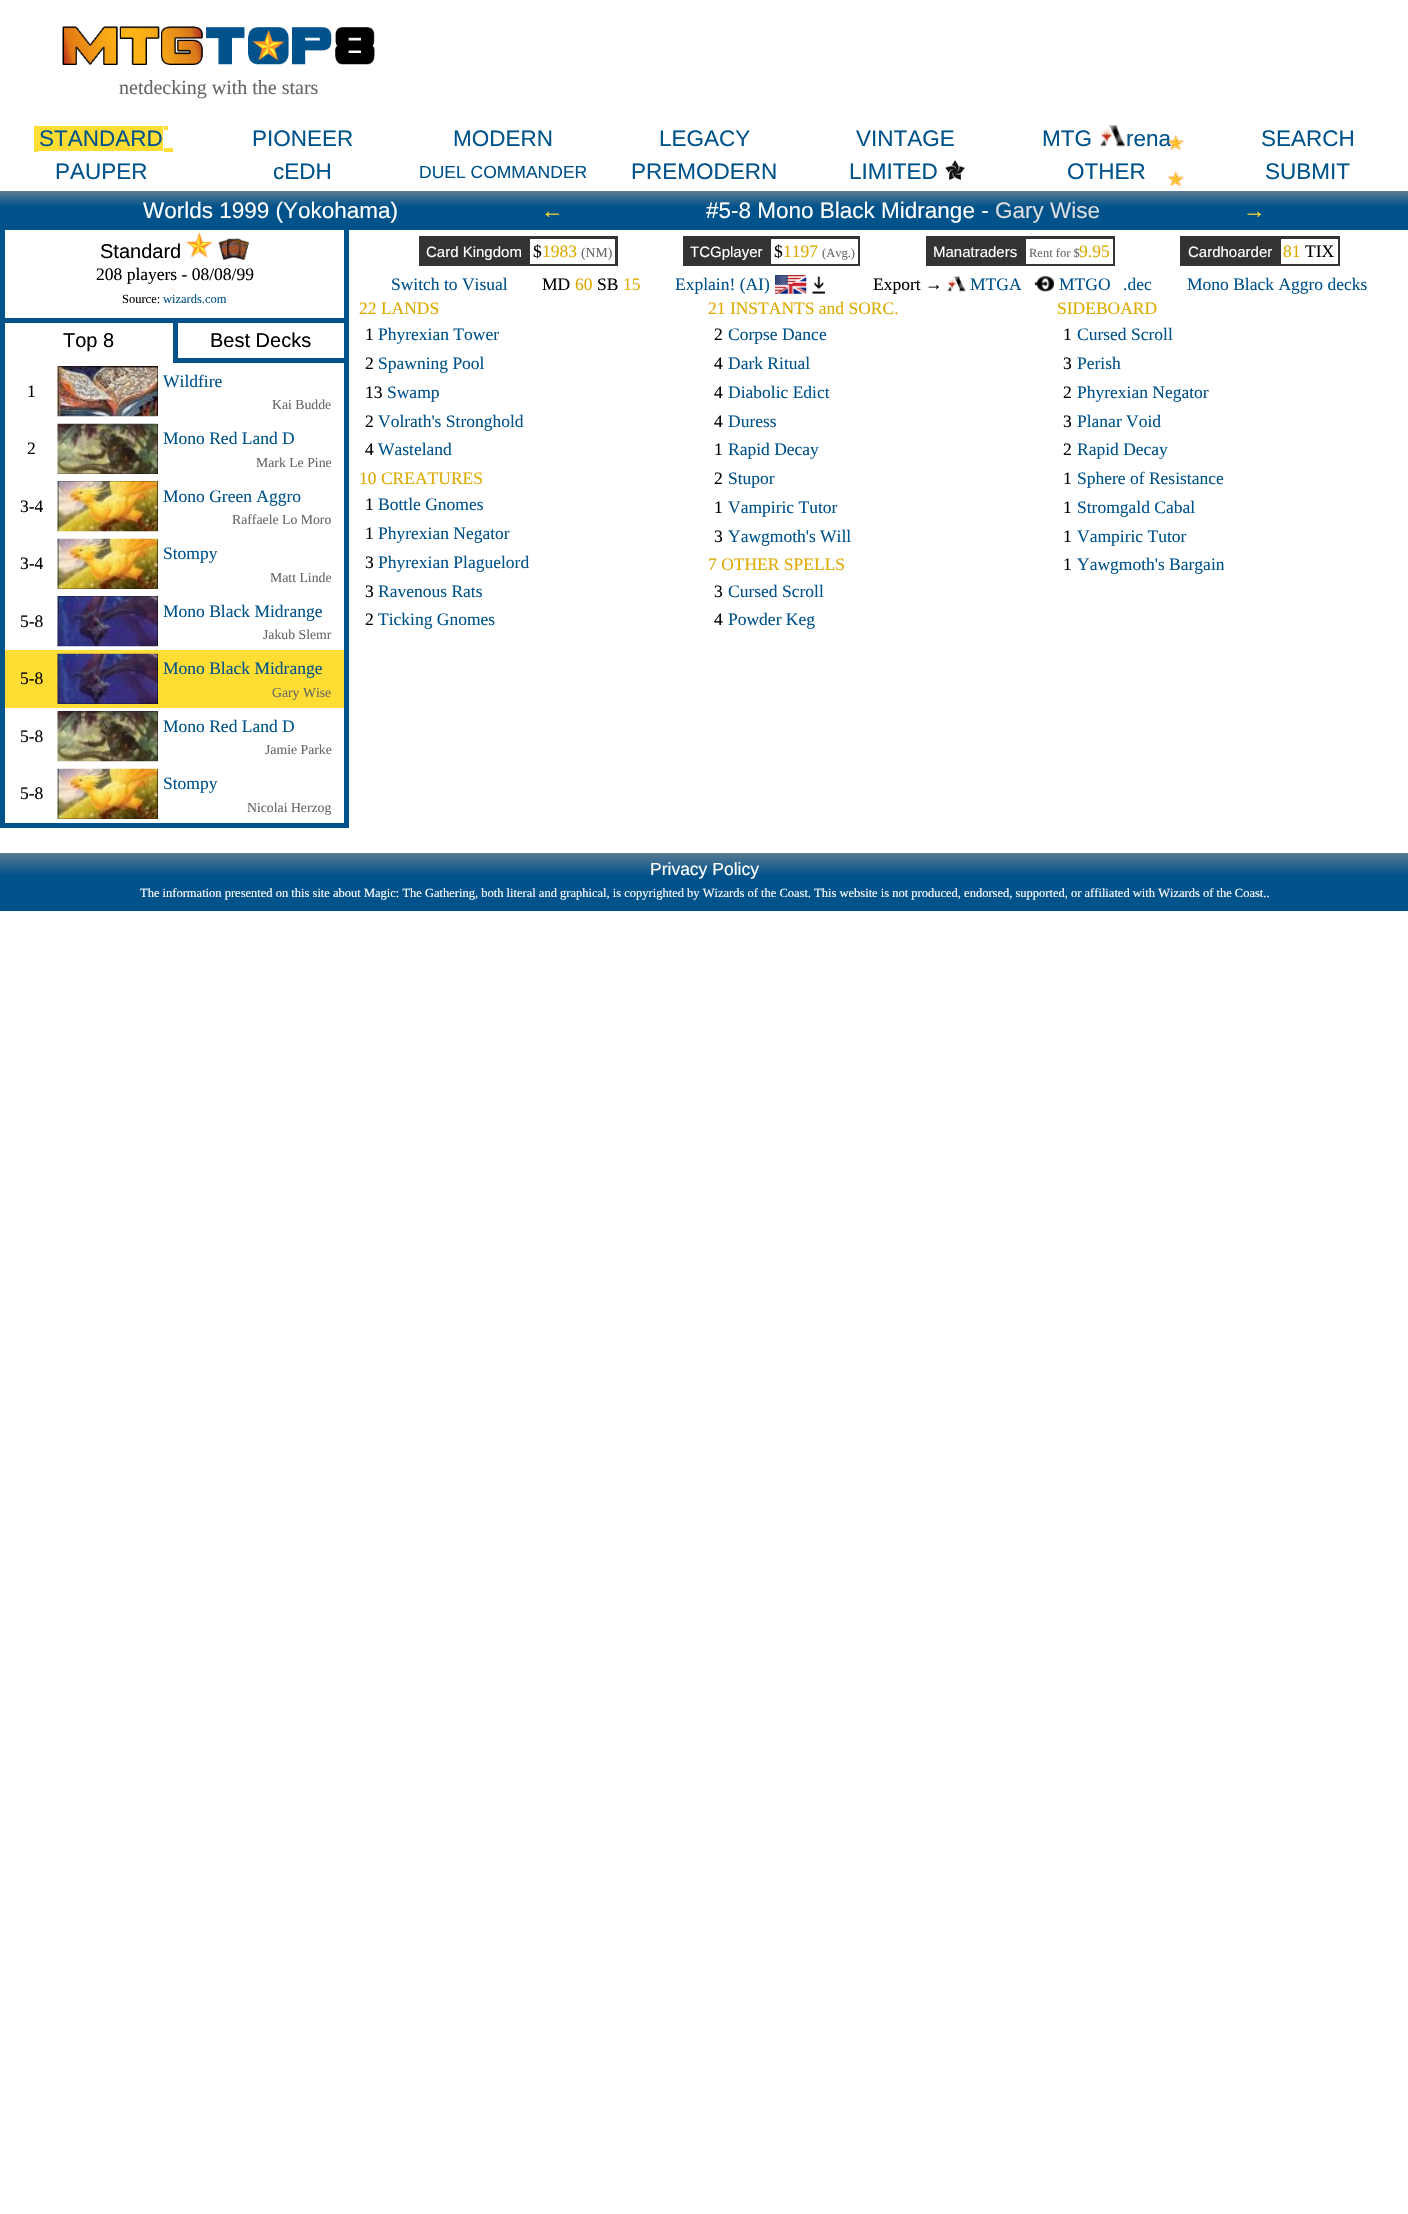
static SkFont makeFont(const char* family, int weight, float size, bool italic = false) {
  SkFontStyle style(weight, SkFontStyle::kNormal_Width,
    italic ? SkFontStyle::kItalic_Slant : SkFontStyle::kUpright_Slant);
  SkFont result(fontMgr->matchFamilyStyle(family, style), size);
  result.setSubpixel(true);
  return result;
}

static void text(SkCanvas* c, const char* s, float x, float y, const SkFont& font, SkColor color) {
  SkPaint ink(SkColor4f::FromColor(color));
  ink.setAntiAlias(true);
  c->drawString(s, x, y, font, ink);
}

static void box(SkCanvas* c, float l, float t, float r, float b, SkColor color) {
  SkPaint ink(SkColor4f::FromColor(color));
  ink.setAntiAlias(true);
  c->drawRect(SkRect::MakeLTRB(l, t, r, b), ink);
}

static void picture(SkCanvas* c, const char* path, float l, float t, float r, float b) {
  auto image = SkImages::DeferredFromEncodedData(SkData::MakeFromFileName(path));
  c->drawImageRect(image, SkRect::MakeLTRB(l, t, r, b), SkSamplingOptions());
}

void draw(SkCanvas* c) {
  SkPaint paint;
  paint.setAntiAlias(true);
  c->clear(0xffffffff);
  picture(c, "img_01.png", 62, 26, 375, 65);
  SkFont face1 = makeFont("Liberation Serif", 400, 20);
  text(c, "netdecking with the stars", 119, 94, face1, 0xff666666);
  box(c, 34, 126, 163, 151, 0xffffdd33);
  SkFont face2 = makeFont("Liberation Sans", 400, 22.5f);
  text(c, "STANDARD", 39, 146, face2, 0xff00528b);
  box(c, 164, 126, 168, 130, 0xffffdd33);
  box(c, 34, 151, 38, 152, 0xffffdd33);
  box(c, 164, 148, 173, 152, 0xffffdd33);
  text(c, "PIONEER", 252, 146, face2, 0xff00528b);
  text(c, "MODERN", 453, 146, face2, 0xff00528b);
  text(c, "LEGACY", 659, 146, face2, 0xff00528b);
  text(c, "VINTAGE", 856, 146, face2, 0xff00528b);
  text(c, "MTG", 1042, 146, face2, 0xff00528b);
  picture(c, "img_02.png", 1099, 125, 1126, 147);
  text(c, "rena", 1126, 146, face2, 0xff00528b);
  text(c, "SEARCH", 1261, 146, face2, 0xff00528b);
  picture(c, "img_03.png", 1167, 135, 1184, 150);
  text(c, "PAUPER", 55, 179, face2, 0xff00528b);
  text(c, "cEDH", 273, 179, face2, 0xff00528b);
  SkFont face3 = makeFont("Liberation Sans", 400, 17.5f);
  text(c, "DUEL COMMANDER", 419, 178, face3, 0xff00528b);
  text(c, "PREMODERN", 631, 179, face2, 0xff00528b);
  text(c, "LIMITED", 849, 179, face2, 0xff00528b);
  picture(c, "img_04.png", 945, 160, 965, 180);
  text(c, "OTHER", 1067, 179, face2, 0xff00528b);
  text(c, "SUBMIT", 1265, 179, face2, 0xff00528b);
  picture(c, "img_05.png", 1167, 171, 1184, 187);
  {
    const SkColor colors[] = {0xff5d7c93, 0xff00528b, 0xff00528b};
    const float stops[] = {0, 0.4f, 1};
    const SkPoint ends[] = {{704, 191}, {704, 230}};
    paint.setShader(SkGradientShader::MakeLinear(ends, colors, stops, 3, SkTileMode::kClamp));
    paint.setAlpha(255);
  }
  c->drawRect(SkRect::MakeLTRB(0, 191, 1408, 230), paint);
  text(c, "Worlds 1999 (Yokohama)", 143, 218, face2, 0xffffffff);
  text(c, "←", 541, 218, face2, 0xffffdd33);
  text(c, "#5-8 Mono Black Midrange -", 706, 218, face2, 0xffffffff);
  text(c, "Gary Wise", 995, 218, face2, 0xffdddddd);
  text(c, "→", 1243, 218, face2, 0xffffdd33);
  box(c, 0, 230, 349, 828, 0xff00528b);
  box(c, 5, 230, 344, 318, 0xffffffff);
  SkFont face4 = makeFont("Liberation Sans", 400, 20);
  text(c, "Standard", 100, 258, face4, 0xff000000);
  picture(c, "img_06.png", 186, 232, 213, 258);
  picture(c, "img_07.png", 218, 238, 249, 260);
  SkFont face5 = makeFont("Liberation Serif", 400, 17.5f);
  text(c, "208 players - 08/08/99", 96, 280, face5, 0xff000000);
  SkFont face6 = makeFont("Liberation Serif", 400, 12.5f);
  text(c, "Source:", 122, 303, face6, 0xff000000);
  text(c, "wizards.com", 163, 303, face6, 0xff00528b);
  box(c, 5, 323, 344, 650, 0xffffffff);
  text(c, "Top 8", 63, 347, face4, 0xff000000);
  box(c, 173, 358, 344, 363, 0xff00528b);
  box(c, 173, 323, 178, 363, 0xff00528b);
  text(c, "Best Decks", 210, 347, face4, 0xff000000);
  text(c, "1", 27, 397, face5, 0xff000000);
  box(c, 58, 366, 158, 416, 0xff000000);
  picture(c, "img_08.png", 57, 366, 158, 417);
  text(c, "Wildfire", 163, 387, face5, 0xff00528b);
  SkFont face7 = makeFont("Liberation Serif", 400, 13.75f);
  text(c, "Kai Budde", 272, 409, face7, 0xff666666);
  text(c, "2", 27, 454, face5, 0xff000000);
  box(c, 58, 424, 158, 474, 0xff000000);
  picture(c, "img_09.png", 57, 423, 158, 474);
  text(c, "Mono Red Land D", 163, 444, face5, 0xff00528b);
  text(c, "Mark Le Pine", 256, 467, face7, 0xff666666);
  text(c, "3-4", 20, 512, face5, 0xff000000);
  box(c, 58, 481, 158, 531, 0xff000000);
  picture(c, "img_10.png", 57, 481, 158, 532);
  text(c, "Mono Green Aggro", 163, 502, face5, 0xff00528b);
  text(c, "Raffaele Lo Moro", 232, 524, face7, 0xff666666);
  text(c, "3-4", 20, 569, face5, 0xff000000);
  box(c, 58, 539, 158, 589, 0xff000000);
  picture(c, "img_11.png", 57, 538, 158, 589);
  text(c, "Stompy", 163, 559, face5, 0xff00528b);
  text(c, "Matt Linde", 270, 582, face7, 0xff666666);
  text(c, "5-8", 20, 627, face5, 0xff000000);
  box(c, 58, 596, 158, 646, 0xff000000);
  picture(c, "img_12.png", 57, 596, 158, 647);
  text(c, "Mono Black Midrange", 163, 617, face5, 0xff00528b);
  text(c, "Jakub Slemr", 263, 639, face7, 0xff666666);
  box(c, 5, 650, 344, 708, 0xffffdd33);
  text(c, "5-8", 20, 684, face5, 0xff000000);
  box(c, 58, 654, 158, 704, 0xff000000);
  picture(c, "img_13.png", 57, 653, 158, 704);
  text(c, "Mono Black Midrange", 163, 674, face5, 0xff00528b);
  text(c, "Gary Wise", 272, 697, face7, 0xff666666);
  box(c, 5, 708, 344, 823, 0xffffffff);
  text(c, "5-8", 20, 742, face5, 0xff000000);
  box(c, 58, 711, 158, 761, 0xff000000);
  picture(c, "img_14.png", 57, 711, 158, 762);
  text(c, "Mono Red Land D", 163, 732, face5, 0xff00528b);
  text(c, "Jamie Parke", 265, 754, face7, 0xff666666);
  text(c, "5-8", 20, 799, face5, 0xff000000);
  box(c, 58, 769, 158, 819, 0xff000000);
  picture(c, "img_11.png", 57, 768, 158, 819);
  text(c, "Stompy", 163, 789, face5, 0xff00528b);
  text(c, "Nicolai Herzog", 247, 812, face7, 0xff666666);
  box(c, 419, 236, 618, 266, 0xff333333);
  SkFont face8 = makeFont("Liberation Sans", 400, 15);
  text(c, "Card Kingdom", 426, 257, face8, 0xffffffff);
  box(c, 530, 239, 615, 264, 0xffffffff);
  text(c, "$", 533, 257, face5, 0xff000000);
  text(c, "1983", 542, 257, face5, 0xffddaa00);
  text(c, "(NM)", 581, 257, face7, 0xff666666);
  box(c, 683, 236, 860, 266, 0xff333333);
  text(c, "TCGplayer", 690, 257, face8, 0xffffffff);
  box(c, 771, 239, 858, 264, 0xffffffff);
  text(c, "$", 774, 257, face5, 0xff000000);
  text(c, "1197", 783, 257, face5, 0xffddaa00);
  text(c, "(Avg.)", 822, 257, face6, 0xff666666);
  box(c, 926, 236, 1115, 266, 0xff333333);
  text(c, "Manatraders", 933, 257, face8, 0xffffffff);
  box(c, 1026, 239, 1113, 264, 0xffffffff);
  text(c, "Rent for $", 1029, 257, face6, 0xff666666);
  text(c, "9.95", 1079, 257, face5, 0xffddaa00);
  box(c, 1180, 236, 1340, 266, 0xff333333);
  text(c, "Cardhoarder", 1188, 257, face8, 0xffffffff);
  box(c, 1281, 239, 1338, 264, 0xffffffff);
  text(c, "81", 1283, 257, face5, 0xffddaa00);
  text(c, "TIX", 1305, 257, face5, 0xff000000);
  text(c, "Switch to Visual", 391, 290, face5, 0xff00528b);
  text(c, "MD", 542, 290, face5, 0xff000000);
  text(c, "60", 575, 290, face5, 0xffddaa00);
  text(c, "SB", 597, 290, face5, 0xff000000);
  text(c, "15", 623, 290, face5, 0xffddaa00);
  text(c, "Explain! (AI)", 675, 290, face5, 0xff00528b);
  picture(c, "img_15.png", 775, 275, 807, 294);
  picture(c, "img_16.png", 812, 276, 825, 294);
  text(c, "Export →", 873, 290, face5, 0xff000000);
  picture(c, "img_17.png", 947, 276, 966, 292);
  text(c, "MTGA", 970, 290, face5, 0xff00528b);
  picture(c, "img_18.png", 1034, 276, 1054, 292);
  text(c, "MTGO", 1059, 290, face5, 0xff00528b);
  text(c, ".dec", 1123, 290, face5, 0xff00528b);
  text(c, "Mono Black Aggro decks", 1187, 290, face5, 0xff00528b);
  text(c, "22 LANDS", 359, 314, face5, 0xffddaa00);
  text(c, "1", 365, 340, face5, 0xff000000);
  text(c, "Phyrexian Tower", 378, 340, face5, 0xff00528b);
  text(c, "2", 365, 369, face5, 0xff000000);
  text(c, "Spawning Pool", 378, 369, face5, 0xff00528b);
  text(c, "13", 365, 398, face5, 0xff000000);
  text(c, "Swamp", 387, 398, face5, 0xff00528b);
  text(c, "2", 365, 427, face5, 0xff000000);
  text(c, "Volrath's Stronghold", 378, 427, face5, 0xff00528b);
  text(c, "4", 365, 455, face5, 0xff000000);
  text(c, "Wasteland", 378, 455, face5, 0xff00528b);
  text(c, "10 CREATURES", 359, 484, face5, 0xffddaa00);
  text(c, "1", 365, 510, face5, 0xff000000);
  text(c, "Bottle Gnomes", 378, 510, face5, 0xff00528b);
  text(c, "1", 365, 539, face5, 0xff000000);
  text(c, "Phyrexian Negator", 378, 539, face5, 0xff00528b);
  text(c, "3", 365, 568, face5, 0xff000000);
  text(c, "Phyrexian Plaguelord", 378, 568, face5, 0xff00528b);
  text(c, "3", 365, 597, face5, 0xff000000);
  text(c, "Ravenous Rats", 378, 597, face5, 0xff00528b);
  text(c, "2", 365, 625, face5, 0xff000000);
  text(c, "Ticking Gnomes", 378, 625, face5, 0xff00528b);
  text(c, "21 INSTANTS and SORC.", 708, 314, face5, 0xffddaa00);
  text(c, "2", 714, 340, face5, 0xff000000);
  text(c, "Corpse Dance", 728, 340, face5, 0xff00528b);
  text(c, "4", 714, 369, face5, 0xff000000);
  text(c, "Dark Ritual", 728, 369, face5, 0xff00528b);
  text(c, "4", 714, 398, face5, 0xff000000);
  text(c, "Diabolic Edict", 728, 398, face5, 0xff00528b);
  text(c, "4", 714, 427, face5, 0xff000000);
  text(c, "Duress", 728, 427, face5, 0xff00528b);
  text(c, "1", 714, 455, face5, 0xff000000);
  text(c, "Rapid Decay", 728, 455, face5, 0xff00528b);
  text(c, "2", 714, 484, face5, 0xff000000);
  text(c, "Stupor", 728, 484, face5, 0xff00528b);
  text(c, "1", 714, 513, face5, 0xff000000);
  text(c, "Vampiric Tutor", 728, 513, face5, 0xff00528b);
  text(c, "3", 714, 542, face5, 0xff000000);
  text(c, "Yawgmoth's Will", 728, 542, face5, 0xff00528b);
  text(c, "7 OTHER SPELLS", 708, 570, face5, 0xffddaa00);
  text(c, "3", 714, 597, face5, 0xff000000);
  text(c, "Cursed Scroll", 728, 597, face5, 0xff00528b);
  text(c, "4", 714, 625, face5, 0xff000000);
  text(c, "Powder Keg", 728, 625, face5, 0xff00528b);
  text(c, "SIDEBOARD", 1057, 314, face5, 0xffddaa00);
  text(c, "1", 1063, 340, face5, 0xff000000);
  text(c, "Cursed Scroll", 1077, 340, face5, 0xff00528b);
  text(c, "3", 1063, 369, face5, 0xff000000);
  text(c, "Perish", 1077, 369, face5, 0xff00528b);
  text(c, "2", 1063, 398, face5, 0xff000000);
  text(c, "Phyrexian Negator", 1077, 398, face5, 0xff00528b);
  text(c, "3", 1063, 427, face5, 0xff000000);
  text(c, "Planar Void", 1077, 427, face5, 0xff00528b);
  text(c, "2", 1063, 455, face5, 0xff000000);
  text(c, "Rapid Decay", 1077, 455, face5, 0xff00528b);
  text(c, "1", 1063, 484, face5, 0xff000000);
  text(c, "Sphere of Resistance", 1077, 484, face5, 0xff00528b);
  text(c, "1", 1063, 513, face5, 0xff000000);
  text(c, "Stromgald Cabal", 1077, 513, face5, 0xff00528b);
  text(c, "1", 1063, 542, face5, 0xff000000);
  text(c, "Vampiric Tutor", 1077, 542, face5, 0xff00528b);
  text(c, "1", 1063, 570, face5, 0xff000000);
  text(c, "Yawgmoth's Bargain", 1077, 570, face5, 0xff00528b);
  {
    const SkColor colors[] = {0xff5d7c93, 0xff00528b, 0xff00528b};
    const float stops[] = {0, 0.4f, 1};
    const SkPoint ends[] = {{704, 852}, {704, 911}};
    paint.setShader(SkGradientShader::MakeLinear(ends, colors, stops, 3, SkTileMode::kClamp));
    paint.setAlpha(255);
  }
  c->drawRect(SkRect::MakeLTRB(0, 853, 1408, 911), paint);
  text(c, "Privacy Policy", 650, 875, face3, 0xffffffff);
  text(c, "The information presented on this site about Magic: The Gathering, both literal and graphical, is copyrighted by Wizards of the Coast. This website is not produced, endorsed, supported, or affiliated with Wizards of the Coast..", 140, 897, face6, 0xffffffff);
}
